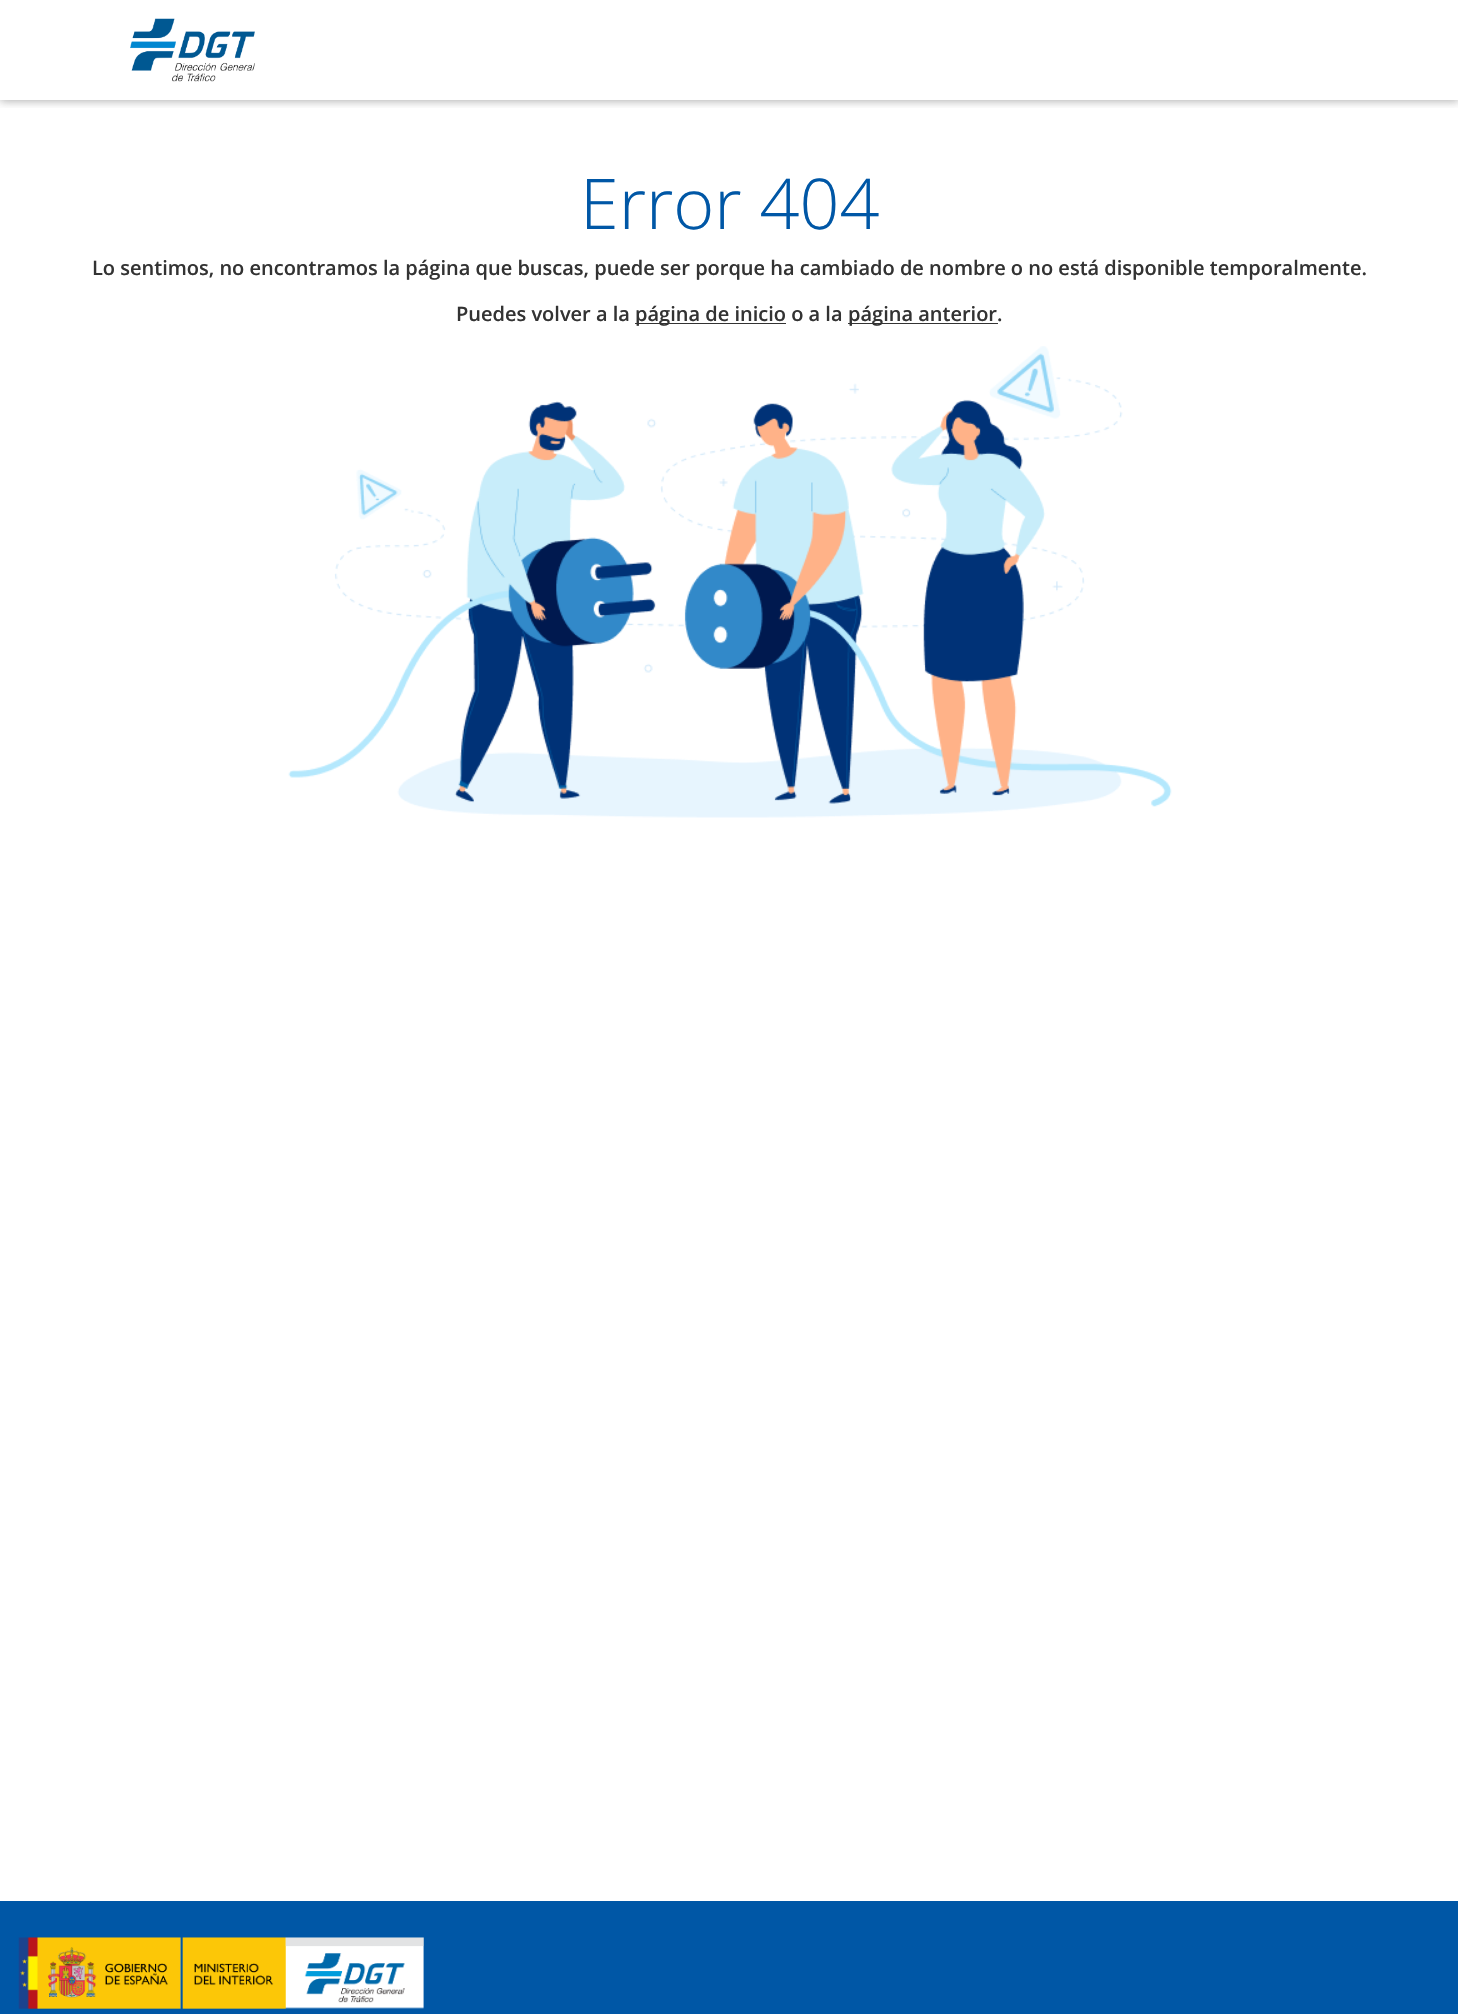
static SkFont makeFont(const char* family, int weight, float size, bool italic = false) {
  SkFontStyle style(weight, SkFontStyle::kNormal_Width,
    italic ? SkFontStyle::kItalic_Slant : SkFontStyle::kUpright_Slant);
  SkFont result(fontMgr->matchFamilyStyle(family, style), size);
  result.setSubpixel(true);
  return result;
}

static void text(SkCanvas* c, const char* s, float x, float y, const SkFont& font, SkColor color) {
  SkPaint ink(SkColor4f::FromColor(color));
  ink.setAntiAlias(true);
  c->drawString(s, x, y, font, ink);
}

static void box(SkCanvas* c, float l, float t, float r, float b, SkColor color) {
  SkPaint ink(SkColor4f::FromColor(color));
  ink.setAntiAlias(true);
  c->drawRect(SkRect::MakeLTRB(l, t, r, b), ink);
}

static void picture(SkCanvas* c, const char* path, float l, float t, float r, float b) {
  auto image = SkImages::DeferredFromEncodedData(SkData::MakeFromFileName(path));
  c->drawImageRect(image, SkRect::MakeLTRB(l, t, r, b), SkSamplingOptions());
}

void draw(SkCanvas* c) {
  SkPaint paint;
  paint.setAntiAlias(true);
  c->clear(0xffffffff);
  c->save();
  c->clipRect(SkRect::MakeLTRB(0, 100, 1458, 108));
  paint.setColor(0x66333333);
  paint.setMaskFilter(SkMaskFilter::MakeBlur(kNormal_SkBlurStyle, 4.5f));
  c->drawRect(SkRect::MakeLTRB(0, 1, 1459, 101), paint);
  paint.setMaskFilter(nullptr);
  c->restore();
  picture(c, "img_01.png", 130, 18, 255, 82);
  SkFont face1 = makeFont("Open Sans", 300, 70);
  text(c, "Error 404", 580, 229, face1, 0xff0057a6);
  SkFont face2 = makeFont("Open Sans", 600, 20);
  text(c, "Lo sentimos, no encontramos la página que buscas, puede ser porque ha cambiado de nombre o no está disponible temporalmente.", 92, 275, face2, 0xff333333);
  text(c, "Puedes volver a la", 456, 321, face2, 0xff333333);
  box(c, 635, 323, 786, 324, 0xff333333);
  text(c, "página de inicio o a la", 635, 321, face2, 0xff333333);
  box(c, 848, 323, 998, 324, 0xff333333);
  text(c, "página anterior.", 848, 321, face2, 0xff333333);
  picture(c, "img_02.png", 288, 346, 1172, 818);
  box(c, 0, 1901, 1458, 2014, 0xff0057a6);
  picture(c, "img_03.png", 18, 1937, 424, 2009);
}
